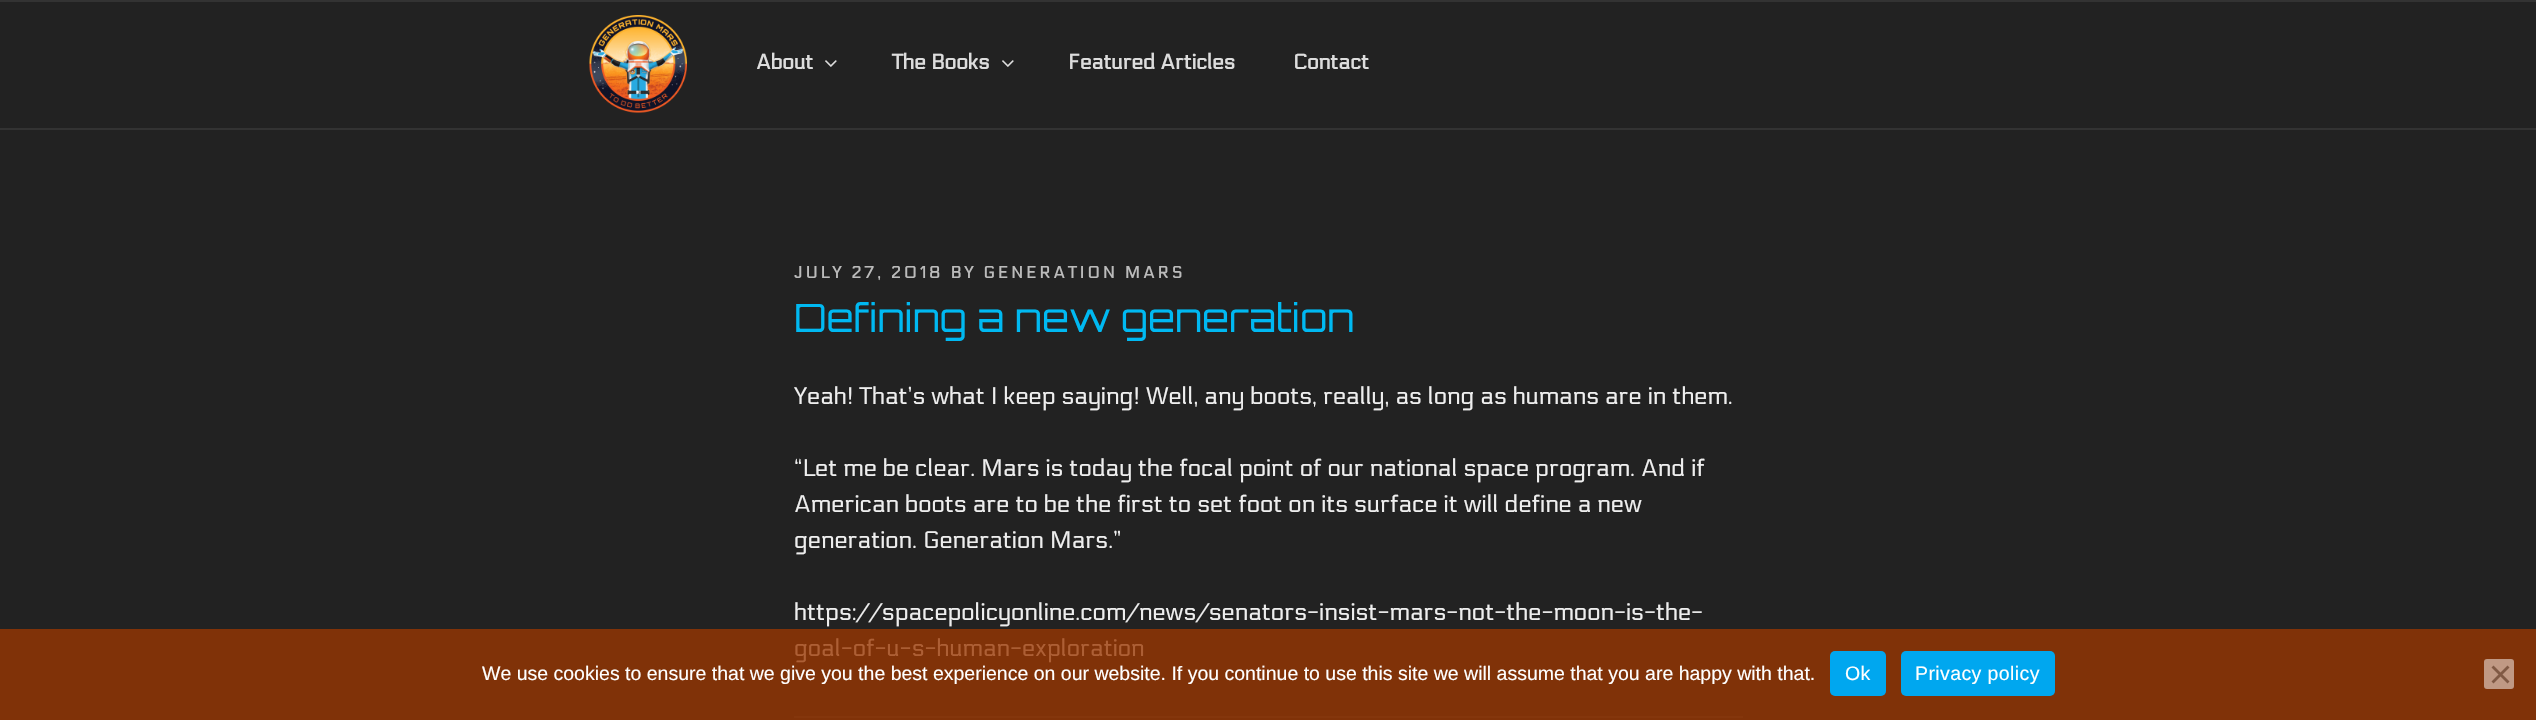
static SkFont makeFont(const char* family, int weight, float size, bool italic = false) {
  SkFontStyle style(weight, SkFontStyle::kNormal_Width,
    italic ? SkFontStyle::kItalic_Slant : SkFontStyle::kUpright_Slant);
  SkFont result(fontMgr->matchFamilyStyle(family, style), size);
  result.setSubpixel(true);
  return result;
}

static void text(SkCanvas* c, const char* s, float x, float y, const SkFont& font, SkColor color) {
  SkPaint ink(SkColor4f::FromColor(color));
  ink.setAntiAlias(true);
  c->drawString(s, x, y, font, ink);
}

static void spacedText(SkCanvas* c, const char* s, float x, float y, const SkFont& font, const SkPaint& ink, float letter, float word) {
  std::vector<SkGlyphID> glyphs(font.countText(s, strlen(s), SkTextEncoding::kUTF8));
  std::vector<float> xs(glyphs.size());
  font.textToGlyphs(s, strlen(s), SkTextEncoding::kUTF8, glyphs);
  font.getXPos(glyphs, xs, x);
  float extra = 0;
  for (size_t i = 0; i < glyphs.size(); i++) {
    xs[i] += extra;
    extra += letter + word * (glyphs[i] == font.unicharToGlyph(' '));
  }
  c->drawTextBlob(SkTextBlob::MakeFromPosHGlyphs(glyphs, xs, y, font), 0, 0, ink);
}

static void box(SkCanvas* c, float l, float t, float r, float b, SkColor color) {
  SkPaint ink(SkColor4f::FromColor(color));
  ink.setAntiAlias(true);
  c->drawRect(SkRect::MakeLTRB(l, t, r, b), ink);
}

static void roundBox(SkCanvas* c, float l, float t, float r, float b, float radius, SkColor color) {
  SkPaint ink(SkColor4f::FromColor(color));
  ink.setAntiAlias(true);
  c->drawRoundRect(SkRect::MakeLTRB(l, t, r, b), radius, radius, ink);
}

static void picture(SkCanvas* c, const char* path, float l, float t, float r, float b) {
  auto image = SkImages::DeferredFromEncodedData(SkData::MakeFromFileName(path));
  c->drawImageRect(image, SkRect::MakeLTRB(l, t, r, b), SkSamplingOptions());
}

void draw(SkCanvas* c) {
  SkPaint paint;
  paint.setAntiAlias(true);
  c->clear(0xff222222);
  box(c, 0, 629, 2536, 720, 0xff803208);
  box(c, 0, 0, 2536, 2, 0xff333333);
  box(c, 0, 128, 2536, 130, 0xff333333);
  picture(c, "img_01.png", 589, 15, 687, 113);
  SkFont face1 = makeFont("Electrolize", 700, 21);
  text(c, "About", 756, 69, face1, 0xffdddddd);
  picture(c, "img_02.png", 825, 60, 837, 67);
  text(c, "The Books", 892, 69, face1, 0xffdddddd);
  picture(c, "img_02.png", 1002, 60, 1014, 67);
  text(c, "Featured Articles", 1068, 69, face1, 0xffdddddd);
  text(c, "Contact", 1293, 69, face1, 0xffdddddd);
  SkFont face2 = makeFont("Electrolize", 700, 16.5f);
  paint.setColor(0xffbbbbbb);
  spacedText(c, "JULY 27, 2018 BY GENERATION MARS", 794, 278, face2, paint, 3, 0);
  SkFont face3 = makeFont("Orbitron", 400, 39);
  text(c, "Defining a new generation", 794, 332, face3, 0xff00b9f2);
  SkFont face4 = makeFont("Electrolize", 400, 24);
  text(c, "Yeah! That’s what I keep saying! Well, any boots, really, as long as humans are in them.", 794, 404, face4, 0xffeeeeee);
  text(c, "“Let me be clear. Mars is today the focal point of our national space program. And if", 794, 476, face4, 0xffeeeeee);
  text(c, "American boots are to be the first to set foot on its surface it will define a new", 794, 512, face4, 0xffeeeeee);
  text(c, "generation. Generation Mars.”", 794, 548, face4, 0xffeeeeee);
  text(c, "https://spacepolicyonline.com/news/senators-insist-mars-not-the-moon-is-the-", 794, 620, face4, 0xffeeeeee);
  text(c, "goal-of-u-s-human-exploration", 794, 656, face4, 0xffad5f35);
  box(c, 794, 716, 1743, 718, 0xff84360c);
  SkFont face5 = makeFont("Liberation Sans", 400, 19.5f);
  text(c, "We use cookies to ensure that we give you the best experience on our website. If you continue to use this site we will assume that you are happy with that.", 482, 680, face5, 0xffffffff);
  roundBox(c, 1830, 651, 1886, 696, 5, 0xff00a7ef);
  paint.setColor(0xffffffff);
  spacedText(c, "Ok", 1845, 680, face5, paint, 0.4f, 0);
  roundBox(c, 1901, 651, 2055, 696, 5, 0xff00a7ef);
  spacedText(c, "Privacy policy", 1915, 680, face5, paint, 0.4f, 0);
  roundBox(c, 2484, 659, 2514, 689, 3, 0xffc09984);
  paint.setColor(0xff805944);
  c->drawPath(SkPathBuilder().moveTo(2507.5f, 665.5f).lineTo(2509.5f, 667.5f).lineTo(2493.5f, 683.5f).lineTo(2491.5f, 681.5f).close().detach(), paint);
  c->drawPath(SkPathBuilder().moveTo(2491.5f, 667.5f).lineTo(2493.5f, 665.5f).lineTo(2509.5f, 681.5f).lineTo(2507.5f, 683.5f).close().detach(), paint);
}
